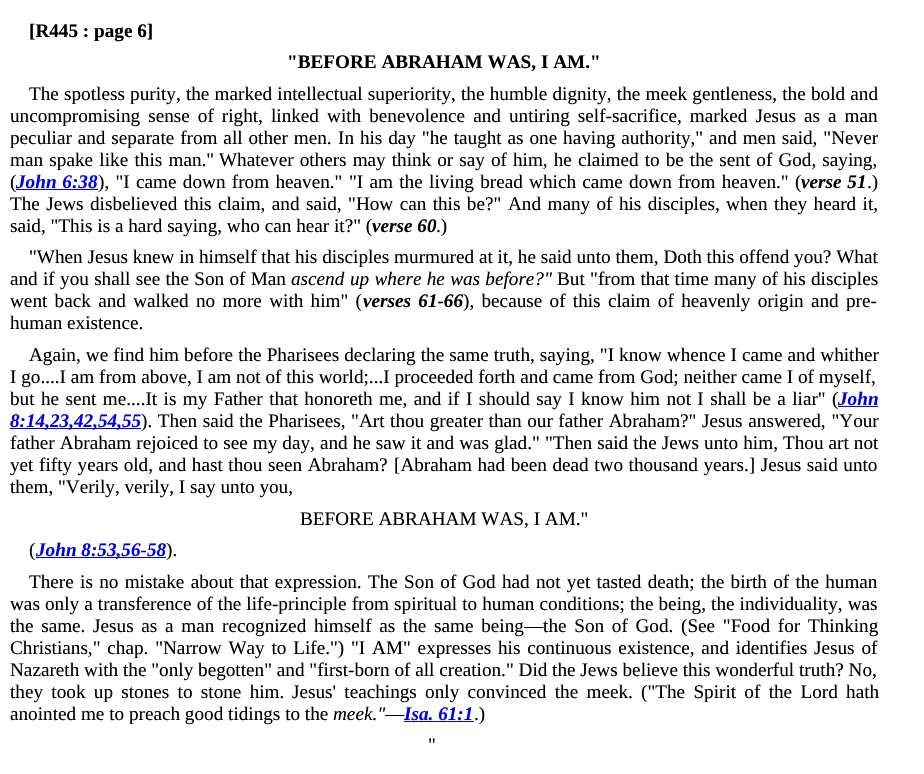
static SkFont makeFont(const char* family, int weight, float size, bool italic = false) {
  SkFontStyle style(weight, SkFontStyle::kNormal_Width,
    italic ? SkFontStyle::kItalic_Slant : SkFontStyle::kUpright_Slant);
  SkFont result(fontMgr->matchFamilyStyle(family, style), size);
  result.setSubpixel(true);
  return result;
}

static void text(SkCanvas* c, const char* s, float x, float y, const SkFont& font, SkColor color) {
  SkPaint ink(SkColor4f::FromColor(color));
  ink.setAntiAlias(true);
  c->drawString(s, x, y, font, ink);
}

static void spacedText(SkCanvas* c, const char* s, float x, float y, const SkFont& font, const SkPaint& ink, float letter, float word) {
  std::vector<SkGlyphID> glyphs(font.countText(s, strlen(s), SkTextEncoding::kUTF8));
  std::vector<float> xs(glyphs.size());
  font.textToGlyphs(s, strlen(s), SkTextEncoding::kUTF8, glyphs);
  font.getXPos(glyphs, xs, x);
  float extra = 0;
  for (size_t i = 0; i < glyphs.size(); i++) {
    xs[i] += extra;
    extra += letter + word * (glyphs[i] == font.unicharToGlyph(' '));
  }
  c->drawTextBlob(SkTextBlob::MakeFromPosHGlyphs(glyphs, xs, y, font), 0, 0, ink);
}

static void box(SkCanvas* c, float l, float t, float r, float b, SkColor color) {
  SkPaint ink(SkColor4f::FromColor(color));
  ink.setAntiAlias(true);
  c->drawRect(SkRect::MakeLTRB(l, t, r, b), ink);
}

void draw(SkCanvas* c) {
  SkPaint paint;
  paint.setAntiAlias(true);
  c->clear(0xffffffff);
  SkFont face1 = makeFont("Liberation Serif", 700, 19.2f);
  text(c, "[R445 : page 6]", 29, 37, face1, 0xff000000);
  text(c, "\"BEFORE ABRAHAM WAS, I AM.\"", 287, 68, face1, 0xff000000);
  SkFont face2 = makeFont("Liberation Serif", 400, 19.2f);
  paint.setColor(0xff000000);
  spacedText(c, "The spotless purity, the marked intellectual superiority, the humble dignity, the meek gentleness, the bold and", 29, 100, face2, paint, 0, 0.4f);
  spacedText(c, "uncompromising sense of right, linked with benevolence and untiring self-sacrifice, marked Jesus as a man", 10, 122, face2, paint, 0, 3.25f);
  spacedText(c, "peculiar and separate from all other men.", 10, 144, face2, paint, 0, 1.1f);
  spacedText(c, "In his day \"he taught as one having authority,\" and men said, \"Never", 338, 144, face2, paint, 0, 1.1f);
  spacedText(c, "man spake like this man.\"", 10, 166, face2, paint, 0, 1.5f);
  spacedText(c, "Whatever others may think or say of him, he claimed to be the sent of God, saying,", 219, 166, face2, paint, 0, 1.25f);
  text(c, "(", 10, 188, face2, 0xff000000);
  SkFont face3 = makeFont("Liberation Serif", 700, 19.2f, true);
  paint.setColor(0xff0000ee);
  spacedText(c, "John 6:38", 16, 188, face3, paint, 0, 1);
  box(c, 16, 189, 98, 190, 0xff0000ee);
  paint.setColor(0xff000000);
  spacedText(c, "), \"I came down from heaven.\"", 98, 188, face2, paint, 0, 1.5f);
  spacedText(c, "\"I am the living bread which came down from heaven.\" (", 349, 188, face2, paint, 0, 1.5f);
  spacedText(c, "verse 51", 801, 188, face3, paint, 0, 1);
  text(c, ".)", 867, 188, face2, 0xff000000);
  spacedText(c, "The Jews disbelieved this claim, and said, \"How can this be?\"", 10, 210, face2, paint, 0, 1.6f);
  spacedText(c, "And many of his disciples, when they heard it,", 508, 210, face2, paint, 0, 1.6f);
  text(c, "said, \"This is a hard saying, who can hear it?\" (", 10, 232, face2, 0xff000000);
  text(c, "verse 60", 372, 232, face3, 0xff000000);
  text(c, ".)", 436, 232, face2, 0xff000000);
  text(c, "\"When Jesus knew in himself that his disciples murmured at it, he said unto them, Doth this offend you? What", 29, 263, face2, 0xff000000);
  spacedText(c, "and if you shall see the Son of Man", 10, 285, face2, paint, 0, 0.5f);
  SkFont face4 = makeFont("Liberation Serif", 400, 19.2f, true);
  text(c, "ascend", 291, 285, face4, 0xff000000);
  spacedText(c, "up where he was before?\"", 350, 285, face4, paint, 0, 0.5f);
  spacedText(c, "But \"from that time many of his disciples", 557, 285, face2, paint, 0, 0.5f);
  spacedText(c, "went back and walked no more with him\" (", 10, 307, face2, paint, 0, 2.5f);
  spacedText(c, "verses 61-66", 363, 307, face3, paint, 0, 2.5f);
  spacedText(c, "), because of this claim of heavenly origin and pre-", 463, 307, face2, paint, 0, 2.5f);
  text(c, "human existence.", 10, 329, face2, 0xff000000);
  spacedText(c, "Again, we find him before the Pharisees declaring the same truth, saying, \"I know whence I came and whither", 29, 361, face2, paint, 0, 0.25f);
  text(c, "I go....I am from above, I am not of this world;...I proceeded forth and came from God; neither came I of myself,", 10, 383, face2, 0xff000000);
  spacedText(c, "but he sent me....It is my Father that honoreth me, and if I should say I know him not I shall be a liar\" (", 10, 405, face2, paint, 0, 1.6f);
  text(c, "John", 838, 405, face3, 0xff0000ee);
  box(c, 838, 406, 878, 407, 0xff0000ee);
  box(c, 10, 428, 141, 429, 0xff0000ee);
  text(c, "8:14,23,42,54,55", 10, 427, face3, 0xff0000ee);
  spacedText(c, "). Then said the Pharisees, \"Art thou greater than our father Abraham?\"", 141, 427, face2, paint, 0, 0.75f);
  spacedText(c, "Jesus answered, \"Your", 702, 427, face2, paint, 0, 1);
  spacedText(c, "father Abraham rejoiced to see my day, and he saw it and was glad.\" \"Then said the Jews unto him, Thou art not", 10, 449, face2, paint, 0, 0.25f);
  spacedText(c, "yet fifty years old, and hast thou seen Abraham?", 10, 471, face2, paint, 0, 0.75f);
  spacedText(c, "[Abraham had been dead two thousand years.] Jesus said unto", 394, 471, face2, paint, 0, 0.75f);
  text(c, "them, \"Verily, verily, I say unto you,", 10, 493, face2, 0xff000000);
  text(c, "BEFORE ABRAHAM WAS, I AM.\"", 300, 525, face2, 0xff000000);
  text(c, "(", 29, 556, face2, 0xff000000);
  box(c, 36, 557, 166, 558, 0xff0000ee);
  text(c, "John 8:53,56-58", 36, 556, face3, 0xff0000ee);
  text(c, ").", 166, 556, face2, 0xff000000);
  spacedText(c, "There is no mistake about that expression. The Son of God had not yet tasted death; the birth of the human", 29, 588, face2, paint, 0, 1.5f);
  spacedText(c, "was only a transference of the life-principle from spiritual to human conditions; the being, the individuality, was", 10, 610, face2, paint, 0, 0.3f);
  spacedText(c, "the same. Jesus as a man recognized himself as the same being—the Son of God.", 10, 632, face2, paint, 0, 2.9f);
  spacedText(c, "(See \"Food for Thinking", 681, 632, face2, paint, 0, 2.9f);
  spacedText(c, "Christians,\" chap. \"Narrow Way to Life.\")", 10, 654, face2, paint, 0, 2);
  spacedText(c, "\"I AM\" expresses his continuous existence, and identifies Jesus of", 351, 654, face2, paint, 0, 2);
  text(c, "Nazareth with the \"only begotten\" and \"first-born of all creation.\" Did the Jews believe this wonderful truth? No,", 10, 676, face2, 0xff000000);
  spacedText(c, "they took up stones to stone him.", 10, 698, face2, paint, 0, 3.5f);
  spacedText(c, "Jesus' teachings only convinced the meek.", 292, 698, face2, paint, 0, 3.5f);
  spacedText(c, "(\"The Spirit of the Lord hath", 641, 698, face2, paint, 0, 3.5f);
  text(c, "anointed me to preach good tidings to the", 10, 720, face2, 0xff000000);
  text(c, "meek.\"", 333, 720, face4, 0xff000000);
  text(c, "—", 385, 720, face2, 0xff000000);
  text(c, "Isa. 61:1", 404, 720, face3, 0xff0000ee);
  box(c, 404, 721, 474, 722, 0xff0000ee);
  text(c, ".)", 474, 720, face2, 0xff000000);
  text(c, "\"", 428, 751, face2, 0xff000000);
}
